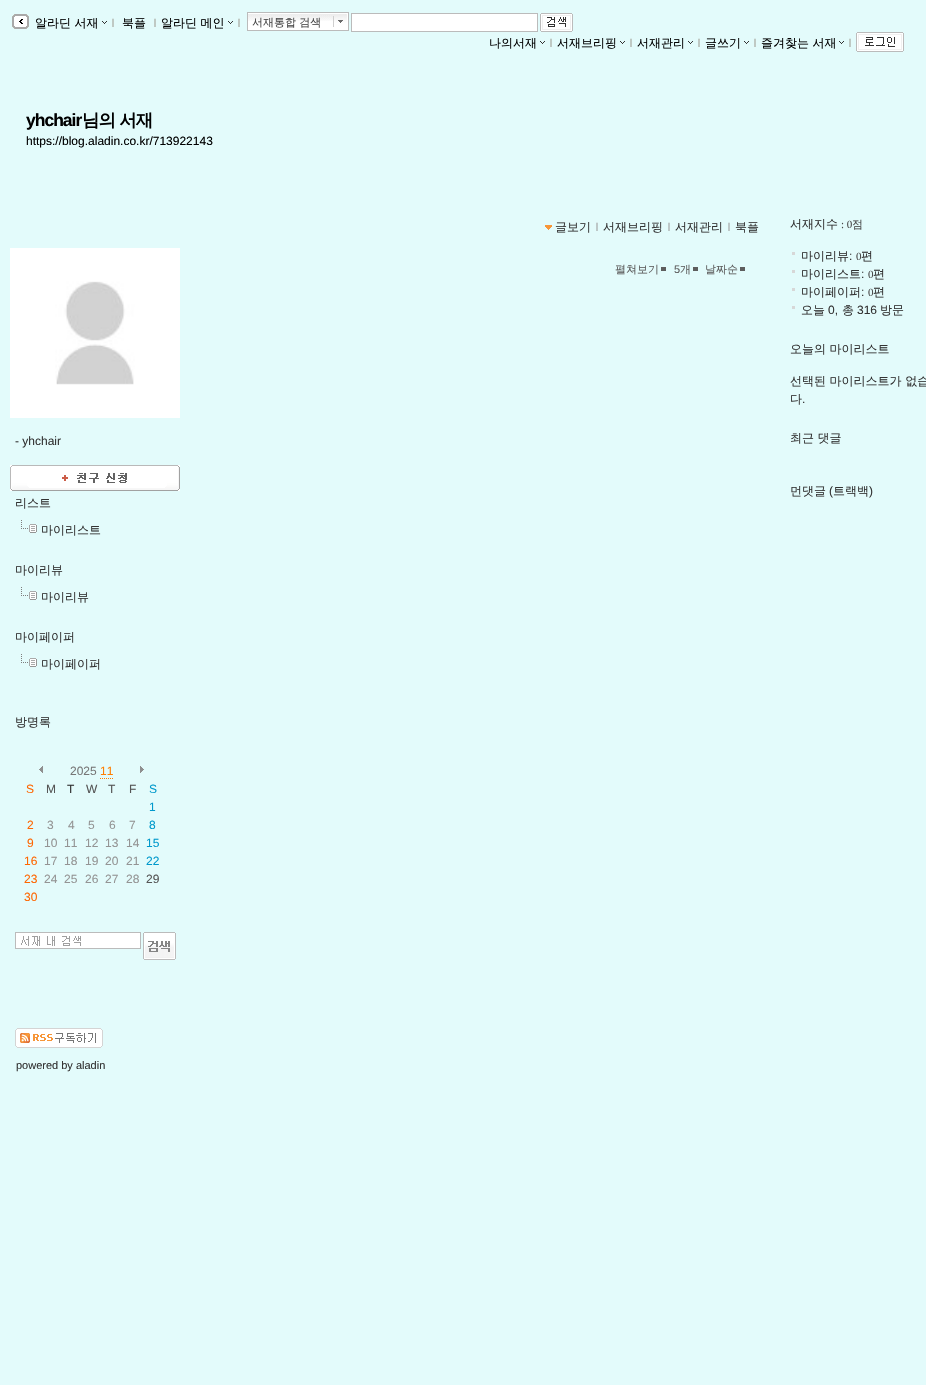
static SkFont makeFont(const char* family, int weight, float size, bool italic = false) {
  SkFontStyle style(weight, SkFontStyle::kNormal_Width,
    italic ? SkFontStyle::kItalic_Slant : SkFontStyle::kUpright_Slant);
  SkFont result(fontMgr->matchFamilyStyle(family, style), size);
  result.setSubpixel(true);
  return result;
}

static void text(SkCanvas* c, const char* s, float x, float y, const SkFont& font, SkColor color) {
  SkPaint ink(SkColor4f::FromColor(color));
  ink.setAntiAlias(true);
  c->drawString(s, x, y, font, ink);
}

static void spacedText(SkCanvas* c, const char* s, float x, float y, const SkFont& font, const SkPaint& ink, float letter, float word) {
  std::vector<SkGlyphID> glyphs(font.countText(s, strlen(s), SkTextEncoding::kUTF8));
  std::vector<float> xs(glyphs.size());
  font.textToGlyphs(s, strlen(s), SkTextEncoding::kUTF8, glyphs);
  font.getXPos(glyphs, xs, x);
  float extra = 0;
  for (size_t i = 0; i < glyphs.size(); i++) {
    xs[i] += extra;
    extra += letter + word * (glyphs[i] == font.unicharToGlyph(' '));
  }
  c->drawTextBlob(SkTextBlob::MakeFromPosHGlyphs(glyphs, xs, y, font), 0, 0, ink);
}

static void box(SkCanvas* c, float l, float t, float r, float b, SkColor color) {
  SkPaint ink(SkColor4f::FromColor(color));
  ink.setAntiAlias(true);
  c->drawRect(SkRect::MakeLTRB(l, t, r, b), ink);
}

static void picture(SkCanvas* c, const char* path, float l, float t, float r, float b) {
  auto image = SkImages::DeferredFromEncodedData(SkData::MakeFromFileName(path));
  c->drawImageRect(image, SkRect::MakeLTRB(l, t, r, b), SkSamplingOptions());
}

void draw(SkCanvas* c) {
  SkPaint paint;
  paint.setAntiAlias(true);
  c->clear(0xffe3fbfb);
  picture(c, "img_01.png", 12, 14, 29, 29);
  SkFont face1 = makeFont("WenQuanYi Zen Hei", 500, 12);
  text(c, "알라딘 서재", 35, 27, face1, 0xff000000);
  picture(c, "img_02.png", 102, 21, 107, 24);
  text(c, "ｌ", 107, 27, face1, 0xffa5a49a);
  text(c, "북플", 122, 27, face1, 0xff000000);
  text(c, "ｌ", 149, 27, face1, 0xffa5a49a);
  text(c, "알라딘 메인", 161, 27, face1, 0xff000000);
  picture(c, "img_02.png", 228, 21, 233, 24);
  text(c, "ｌ", 233, 27, face1, 0xffa5a49a);
  box(c, 248, 13, 348, 30, 0xffffffff);
  picture(c, "img_03.png", 248, 14, 333, 21);
  paint.setStyle(SkPaint::kStroke_Style);
  paint.setStrokeWidth(1);
  paint.setColor(0xffbbbbbb);
  c->drawRect(SkRect::MakeLTRB(247.5f, 12.5f, 348.5f, 30.5f), paint);
  SkFont face2 = makeFont("WenQuanYi Zen Hei", 500, 11);
  text(c, "서재통합 검색", 252, 26, face2, 0xff474747);
  picture(c, "img_04.png", 333, 14, 348, 27);
  paint.setStyle(SkPaint::kFill_Style);
  paint.setColor(0xffffffff);
  c->drawRect(SkRect::MakeLTRB(351.5f, 13.5f, 537.5f, 31.5f), paint);
  paint.setStyle(SkPaint::kStroke_Style);
  paint.setColor(0xffbbbbbb);
  c->drawRect(SkRect::MakeLTRB(351.5f, 13.5f, 537.5f, 31.5f), paint);
  picture(c, "img_05.png", 540, 13, 573, 32);
  text(c, "나의서재", 489, 47, face1, 0xff000000);
  picture(c, "img_02.png", 540, 41, 545, 44);
  text(c, "ｌ", 545, 47, face1, 0xffa5a49a);
  text(c, "서재브리핑", 557, 47, face1, 0xff000000);
  picture(c, "img_02.png", 620, 41, 625, 44);
  text(c, "ｌ", 625, 47, face1, 0xffa5a49a);
  text(c, "서재관리", 637, 47, face1, 0xff000000);
  picture(c, "img_02.png", 688, 41, 693, 44);
  text(c, "ｌ", 693, 47, face1, 0xffa5a49a);
  text(c, "글쓰기", 705, 47, face1, 0xff000000);
  picture(c, "img_02.png", 744, 41, 749, 44);
  text(c, "ｌ", 749, 47, face1, 0xffa5a49a);
  text(c, "즐겨찾는 서재", 761, 47, face1, 0xff000000);
  picture(c, "img_02.png", 839, 41, 844, 44);
  text(c, "ｌ", 844, 47, face1, 0xffa5a49a);
  picture(c, "img_06.png", 856, 32, 904, 52);
  SkFont face3 = makeFont("Liberation Sans", 700, 17.5f);
  paint.setStyle(SkPaint::kFill_Style);
  paint.setColor(0xff000000);
  spacedText(c, "yhchair", 26, 126, face3, paint, -1, 0);
  SkFont face4 = makeFont("WenQuanYi Zen Hei", 700, 17.5f);
  spacedText(c, "님의 서재", 82, 126, face4, paint, -1, 0);
  SkFont face5 = makeFont("Liberation Sans", 400, 12);
  text(c, "https://blog.aladin.co.kr/713922143", 26, 145, face5, 0xff000000);
  picture(c, "img_07.png", 545, 225, 552, 230);
  text(c, "글보기", 555, 231, face1, 0xff333333);
  text(c, "ｌ", 591, 231, face1, 0xffa1a1a1);
  text(c, "서재브리핑", 603, 231, face1, 0xff333333);
  text(c, "ｌ", 663, 231, face1, 0xffa1a1a1);
  text(c, "서재관리", 675, 231, face1, 0xff333333);
  text(c, "ｌ", 723, 231, face1, 0xffa1a1a1);
  text(c, "북플", 735, 231, face1, 0xff333333);
  text(c, "펼쳐보기", 615, 273, face2, 0xff5d5d5d);
  box(c, 661, 267, 666, 271, 0xff5d5d5d);
  SkFont face6 = makeFont("Liberation Sans", 400, 11);
  text(c, "5", 674, 273, face6, 0xff5d5d5d);
  text(c, "개", 680, 273, face2, 0xff5d5d5d);
  box(c, 693, 267, 698, 271, 0xff5d5d5d);
  text(c, "날짜순", 705, 273, face2, 0xff5d5d5d);
  box(c, 740, 267, 745, 271, 0xff5d5d5d);
  picture(c, "img_08.png", 10, 248, 180, 418);
  text(c, "- yhchair", 15, 445, face5, 0xff333333);
  picture(c, "img_09.png", 10, 465, 180, 491);
  text(c, "리스트", 15, 507, face1, 0xff333333);
  picture(c, "img_10.png", 21, 520, 37, 533);
  text(c, "마이리스트", 41, 534, face1, 0xff333333);
  text(c, "마이리뷰", 15, 574, face1, 0xff333333);
  picture(c, "img_10.png", 21, 587, 37, 600);
  text(c, "마이리뷰", 41, 601, face1, 0xff333333);
  text(c, "마이페이퍼", 15, 641, face1, 0xff333333);
  picture(c, "img_10.png", 21, 654, 37, 667);
  text(c, "마이페이퍼", 41, 668, face1, 0xff333333);
  text(c, "방명록", 15, 726, face1, 0xff333333);
  picture(c, "img_11.png", 39, 766, 43, 773);
  text(c, "2025", 70, 775, face5, 0xff777777);
  text(c, "11", 100, 775, face5, 0xffff7e00);
  paint.setStyle(SkPaint::kStroke_Style);
  paint.setColor(0xffff7e00);
  paint.setPathEffect(SkDashPathEffect::Make({{1, 1}}, 0));
  c->drawPath(SkPathBuilder().moveTo(100, 778.5f).lineTo(113, 778.5f).detach(), paint);
  paint.setPathEffect(nullptr);
  picture(c, "img_12.png", 140, 766, 144, 773);
  text(c, "S", 26, 793, face5, 0xffff6600);
  text(c, "M", 46, 793, face5, 0xff555555);
  text(c, "T", 67, 793, face5, 0xff333333);
  text(c, "W", 86, 793, face5, 0xff555555);
  text(c, "T", 108, 793, face5, 0xff555555);
  text(c, "F", 129, 793, face5, 0xff555555);
  text(c, "S", 149, 793, face5, 0xff0099cc);
  text(c, "1", 149, 811, face5, 0xff0099cc);
  text(c, "2", 27, 829, face5, 0xffff6600);
  text(c, "3", 47, 829, face5, 0xff949494);
  text(c, "4", 68, 829, face5, 0xff949494);
  text(c, "5", 88, 829, face5, 0xff949494);
  text(c, "6", 109, 829, face5, 0xff949494);
  text(c, "7", 129, 829, face5, 0xff949494);
  text(c, "8", 149, 829, face5, 0xff0099cc);
  text(c, "9", 27, 847, face5, 0xffff6600);
  text(c, "10", 44, 847, face5, 0xff949494);
  text(c, "11", 64, 847, face5, 0xff949494);
  text(c, "12", 85, 847, face5, 0xff949494);
  text(c, "13", 105, 847, face5, 0xff949494);
  text(c, "14", 126, 847, face5, 0xff949494);
  text(c, "15", 146, 847, face5, 0xff0099cc);
  text(c, "16", 24, 865, face5, 0xffff6600);
  text(c, "17", 44, 865, face5, 0xff949494);
  text(c, "18", 64, 865, face5, 0xff949494);
  text(c, "19", 85, 865, face5, 0xff949494);
  text(c, "20", 105, 865, face5, 0xff949494);
  text(c, "21", 126, 865, face5, 0xff949494);
  text(c, "22", 146, 865, face5, 0xff0099cc);
  text(c, "23", 24, 883, face5, 0xffff6600);
  text(c, "24", 44, 883, face5, 0xff949494);
  text(c, "25", 64, 883, face5, 0xff949494);
  text(c, "26", 85, 883, face5, 0xff949494);
  text(c, "27", 105, 883, face5, 0xff949494);
  text(c, "28", 126, 883, face5, 0xff949494);
  text(c, "29", 146, 883, face5, 0xff555555);
  text(c, "30", 24, 901, face5, 0xffff6600);
  box(c, 16, 933, 140, 948, 0xffffffff);
  picture(c, "img_13.png", 21, 936, 81, 946);
  paint.setColor(0xffbbbbbb);
  c->drawRect(SkRect::MakeLTRB(15.5f, 932.5f, 140.5f, 948.5f), paint);
  picture(c, "img_14.png", 143, 932, 176, 960);
  picture(c, "img_15.png", 15, 1028, 103, 1048);
  text(c, "powered by aladin", 16, 1069, face6, 0xff333333);
  text(c, "서재지수", 790, 228, face1, 0xff333333);
  SkFont face7 = makeFont("Liberation Serif", 400, 11);
  text(c, ": 0", 841, 228, face7, 0xff474747);
  text(c, "점", 852, 228, face2, 0xff474747);
  box(c, 792, 252, 795, 255, 0xffd7d7d7);
  text(c, "마이리뷰", 801, 260, face1, 0xff333333);
  text(c, ":", 849, 260, face5, 0xff333333);
  text(c, "0", 856, 260, face7, 0xff474747);
  text(c, "편", 861, 260, face1, 0xff333333);
  box(c, 792, 270, 795, 273, 0xffd7d7d7);
  text(c, "마이리스트", 801, 278, face1, 0xff333333);
  text(c, ":", 861, 278, face5, 0xff333333);
  text(c, "0", 868, 278, face7, 0xff474747);
  text(c, "편", 873, 278, face1, 0xff333333);
  box(c, 792, 288, 795, 291, 0xffd7d7d7);
  text(c, "마이페이퍼", 801, 296, face1, 0xff333333);
  text(c, ":", 861, 296, face5, 0xff333333);
  text(c, "0", 868, 296, face7, 0xff474747);
  text(c, "편", 873, 296, face1, 0xff333333);
  box(c, 792, 306, 795, 309, 0xffd7d7d7);
  text(c, "오늘", 801, 314, face1, 0xff333333);
  text(c, "0,", 828, 314, face5, 0xff333333);
  text(c, "총", 842, 314, face1, 0xff333333);
  text(c, "316", 857, 314, face5, 0xff333333);
  text(c, "방문", 880, 314, face1, 0xff333333);
  text(c, "오늘의 마이리스트", 790, 353, face1, 0xff333333);
  text(c, "선택된 마이리스트가 없습", 790, 385, face1, 0xff333333);
  text(c, "다", 790, 403, face1, 0xff333333);
  text(c, ".", 802, 403, face5, 0xff333333);
  text(c, "최근 댓글", 790, 442, face1, 0xff333333);
  text(c, "먼댓글", 790, 495, face1, 0xff333333);
  text(c, "(", 829, 495, face5, 0xff333333);
  text(c, "트랙백", 833, 495, face1, 0xff333333);
  text(c, ")", 869, 495, face5, 0xff333333);
}
